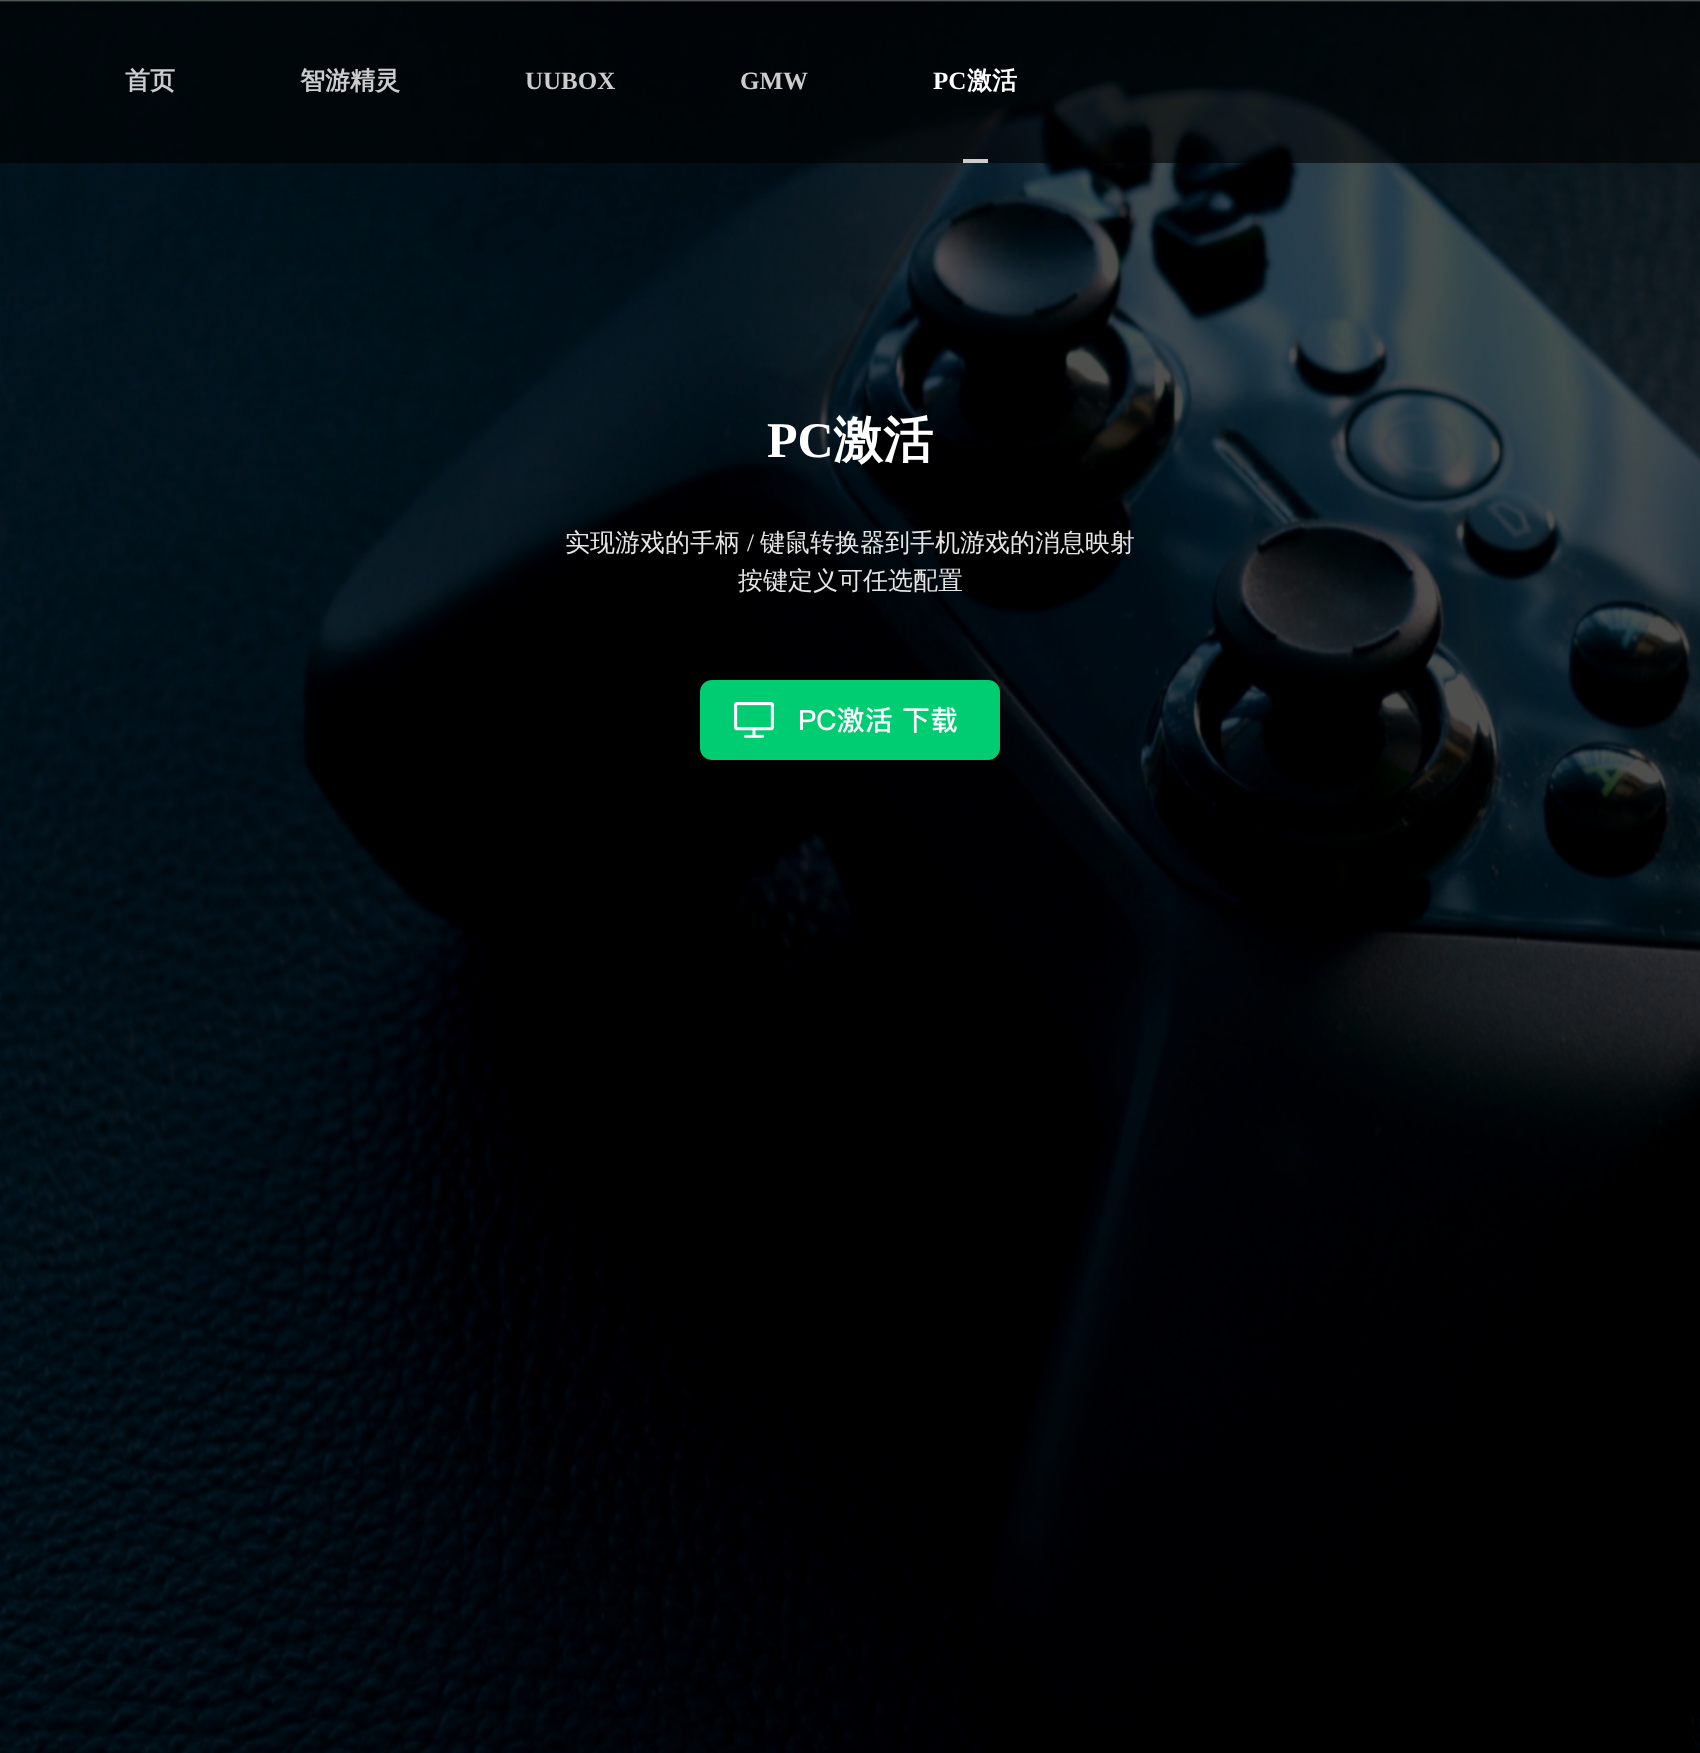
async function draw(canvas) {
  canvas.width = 1700
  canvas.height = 1753
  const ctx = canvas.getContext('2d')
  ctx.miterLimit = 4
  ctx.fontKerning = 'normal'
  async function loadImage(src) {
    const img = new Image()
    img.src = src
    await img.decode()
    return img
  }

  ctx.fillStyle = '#fff'
  ctx.fillRect(0, 0, 1700, 1753)
  ctx.drawImage(await loadImage('image0.png'), 0, 0, 1700, 1753)
  ctx.fillStyle = '#00000099'
  ctx.fillRect(0, 0, 1700, 163)
  ctx.font = 'bold 25px WenQuanYi Zen Hei'
  ctx.fillStyle = '#ccc'
  ctx.fillText('首页', 125, 89)
  ctx.fillText('智游精灵', 300, 89)
  ctx.font = 'bold 25px Liberation Serif'
  ctx.fillText('UUBOX', 525, 89)
  ctx.fillText('GMW', 740, 89)
  ctx.fillStyle = '#fff'
  ctx.fillText('PC', 933, 89)
  ctx.font = 'bold 25px WenQuanYi Zen Hei'
  ctx.fillText('激活', 967, 89)
  ctx.fillStyle = '#ccc'
  ctx.fillRect(963, 159, 25, 4)
  ctx.font = 'bold 50px Liberation Serif'
  ctx.fillStyle = '#fff'
  ctx.fillText('PC', 767, 457)
  ctx.font = 'bold 50px WenQuanYi Zen Hei'
  ctx.fillText('激活', 833, 457)
  ctx.font = '500 25px WenQuanYi Zen Hei'
  ctx.fillStyle = '#e5e5e5'
  ctx.fillText('实现游戏的手柄', 565, 551)
  ctx.font = '25px Liberation Serif'
  ctx.fillText('/', 747, 551)
  ctx.font = '500 25px WenQuanYi Zen Hei'
  ctx.fillText('键鼠转换器到手机游戏的消息映射', 760, 551)
  ctx.fillText('按键定义可任选配置', 738, 589)
  ctx.drawImage(await loadImage('image1.png'), 700, 680, 300, 80)
}

draw(document.querySelector('canvas'))
